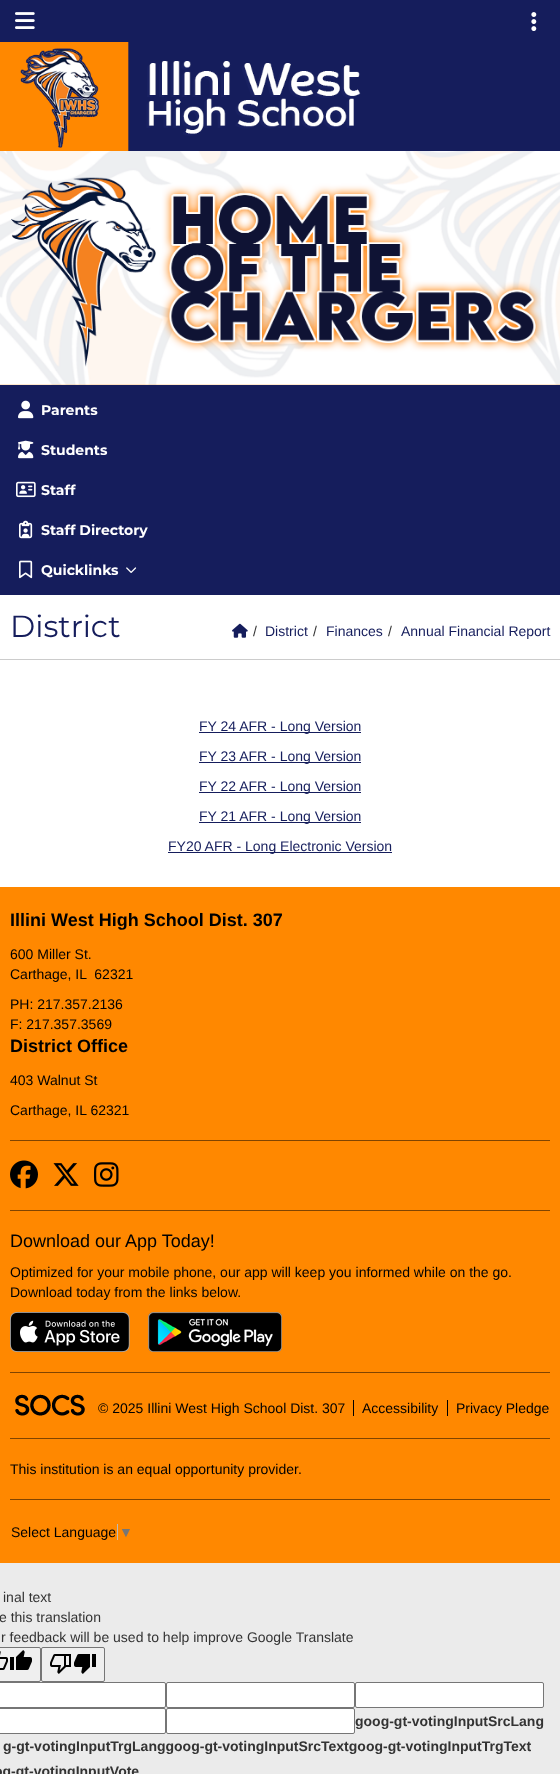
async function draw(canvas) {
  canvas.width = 560
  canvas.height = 1774
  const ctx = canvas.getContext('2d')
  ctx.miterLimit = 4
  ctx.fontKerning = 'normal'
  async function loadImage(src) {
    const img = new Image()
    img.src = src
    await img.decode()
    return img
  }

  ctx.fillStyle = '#ebebeb'
  ctx.fillRect(0, 0, 560, 1774)
  ctx.fillStyle = '#151d5c'
  ctx.fillRect(0, 0, 560, 42)
  ctx.drawImage(await loadImage('image0.png'), 15, 12, 20, 17)
  ctx.drawImage(await loadImage('image1.png'), 531, 12, 6, 19)
  ctx.fillStyle = '#f80'
  ctx.fillRect(0, 42, 560, 343)
  ctx.drawImage(await loadImage('image2.png'), 20, 42, 540, 109)
  ctx.drawImage(await loadImage('image3.png'), 0, 151, 560, 234)
  ctx.fillStyle = '#151d5c'
  ctx.fillRect(0, 385, 560, 210)
  ctx.drawImage(await loadImage('image4.png'), 18, 400, 16, 19)
  ctx.font = 'bold 14px Montserrat'
  ctx.fillStyle = '#fff'
  ctx.fillText('Parents', 41, 415)
  ctx.drawImage(await loadImage('image5.png'), 18, 440, 16, 19)
  ctx.fillText('Students', 41, 455)
  ctx.drawImage(await loadImage('image6.png'), 16, 481, 20, 17)
  ctx.fillText('Staff', 41, 495)
  ctx.drawImage(await loadImage('image7.png'), 19, 520, 14, 19)
  ctx.fillText('Staff Directory', 41, 535)
  ctx.drawImage(await loadImage('image8.png'), 19, 560, 14, 19)
  ctx.fillText('Quicklinks', 41, 575)
  ctx.drawImage(await loadImage('image9.png'), 126, 567, 11, 6)
  ctx.fillRect(0, 595, 560, 64)
  ctx.fillStyle = '#ccc'
  ctx.fillRect(0, 659, 560, 1)
  ctx.font = '30.5px Montserrat'
  ctx.fillStyle = '#151d5c'
  ctx.fillText('District', 10, 637)
  ctx.drawImage(await loadImage('image10.png'), 232, 623, 16, 15)
  ctx.font = '14px Liberation Sans'
  ctx.fillStyle = '#333'
  ctx.fillText('/', 253, 636)
  ctx.fillStyle = '#151d5c'
  ctx.fillText('District', 265, 636)
  ctx.fillStyle = '#333'
  ctx.fillText('/', 313, 636)
  ctx.fillStyle = '#151d5c'
  ctx.fillText('Finances', 326, 636)
  ctx.fillStyle = '#333'
  ctx.fillText('/', 388, 636)
  ctx.fillStyle = '#151d5c'
  ctx.fillText('Annual Financial Report', 401, 636)
  ctx.fillStyle = '#fff'
  ctx.fillRect(0, 660, 560, 227)
  ctx.fillStyle = '#151d5c'
  ctx.fillRect(199, 732, 162, 1)
  ctx.fillText('FY 24 AFR - Long Version', 199, 731)
  ctx.fillRect(199, 762, 162, 1)
  ctx.fillText('FY 23 AFR - Long Version', 199, 761)
  ctx.fillRect(199, 792, 162, 1)
  ctx.fillText('FY 22 AFR - Long Version', 199, 791)
  ctx.fillRect(199, 822, 162, 1)
  ctx.fillText('FY 21 AFR - Long Version', 199, 821)
  ctx.fillRect(168, 852, 224, 1)
  ctx.fillText('FY20 AFR - Long Electronic Version', 168, 851)
  ctx.fillStyle = '#f80'
  ctx.fillRect(0, 887, 560, 676)
  ctx.font = 'bold 18px Liberation Sans'
  ctx.fillStyle = '#000'
  ctx.fillText('Illini West High School Dist. 307', 10, 926)
  ctx.font = '14px Liberation Sans'
  ctx.fillText('600 Miller St.', 10, 959)
  ctx.fillText('Carthage, IL  62321', 10, 979)
  ctx.fillText('PH: 217.357.2136', 10, 1009)
  ctx.fillText('F: 217.357.3569', 10, 1029)
  ctx.font = 'bold 18px Liberation Sans'
  ctx.fillText('District Office', 10, 1052)
  ctx.font = '14px Liberation Sans'
  ctx.fillText('403 Walnut St', 10, 1085)
  ctx.fillText('Carthage, IL 62321', 10, 1115)
  ctx.fillStyle = '#804400'
  ctx.fillRect(10, 1140, 540, 1)
  ctx.drawImage(await loadImage('image11.png'), 10, 1160, 28, 29)
  ctx.drawImage(await loadImage('image12.png'), 53, 1163, 26, 23)
  ctx.drawImage(await loadImage('image13.png'), 94, 1162, 25, 25)
  ctx.fillRect(10, 1210, 540, 1)
  ctx.font = '18px Liberation Sans'
  ctx.fillStyle = '#000'
  ctx.fillText('Download our App Today!', 10, 1247)
  ctx.font = '14px Liberation Sans'
  ctx.fillText('Optimized for your mobile phone, our app will keep you informed while on the go.', 10, 1277)
  ctx.fillText('Download today from the links below.', 10, 1297)
  ctx.drawImage(await loadImage('image14.png'), 10, 1312, 120, 40)
  ctx.drawImage(await loadImage('image15.png'), 148, 1312, 134, 40)
  ctx.fillStyle = '#804400'
  ctx.fillRect(10, 1372, 540, 1)
  ctx.drawImage(await loadImage('image16.png'), 15, 1394, 70, 22)
  ctx.fillStyle = '#000'
  ctx.fillText('© 2025 Illini West High School Dist. 307', 98, 1413)
  ctx.fillText('Accessibility', 362, 1413)
  ctx.fillRect(353, 1400, 1, 16)
  ctx.fillText('Privacy Pledge', 456, 1413)
  ctx.fillRect(447, 1400, 1, 16)
  ctx.fillStyle = '#804400'
  ctx.fillRect(10, 1438, 540, 1)
  ctx.fillStyle = '#000'
  ctx.fillText('This institution is an equal opportunity provider.', 10, 1474)
  ctx.fillStyle = '#804400'
  ctx.fillRect(10, 1499, 540, 1)
  ctx.fillStyle = '#000'
  ctx.fillText('Select Language', 11, 1537)
  ctx.fillStyle = '#bbb'
  ctx.fillRect(117, 1524, 1, 16)
  ctx.fillStyle = '#767676'
  ctx.fillText('▼', 119, 1537)
  ctx.fillStyle = '#333'
  ctx.fillText('inal text', 3, 1602)
  ctx.fillText('e this translation', -1, 1622)
  ctx.fillText('r feedback will be used to help improve Google Translate', 1, 1642)
  ctx.fillStyle = '#efefef'
  ctx.beginPath()
  ctx.roundRect(-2.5, 1647.5, 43, 34, 1.5)
  ctx.fill()
  ctx.strokeStyle = '#767676'
  ctx.stroke()
  ctx.drawImage(await loadImage('image17.png'), 0, 1651, 8, 19)
  ctx.drawImage(await loadImage('image18.png'), 10, 1650, 22, 20)
  ctx.beginPath()
  ctx.roundRect(41.5, 1647.5, 63, 34, 1.5)
  ctx.fill()
  ctx.stroke()
  ctx.drawImage(await loadImage('image19.png'), 50, 1654, 21, 20)
  ctx.drawImage(await loadImage('image20.png'), 74, 1654, 22, 20)
  ctx.fillStyle = '#fff'
  ctx.beginPath()
  ctx.roundRect(-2.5, 1682.5, 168, 25, 1.5)
  ctx.fill()
  ctx.stroke()
  ctx.beginPath()
  ctx.roundRect(166.5, 1682.5, 188, 25, 1.5)
  ctx.fill()
  ctx.stroke()
  ctx.beginPath()
  ctx.roundRect(355.5, 1682.5, 188, 25, 1.5)
  ctx.fill()
  ctx.stroke()
  ctx.beginPath()
  ctx.roundRect(-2.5, 1708.5, 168, 25, 1.5)
  ctx.fill()
  ctx.stroke()
  ctx.beginPath()
  ctx.roundRect(166.5, 1708.5, 188, 25, 1.5)
  ctx.fill()
  ctx.stroke()
  ctx.font = 'bold 14px Liberation Sans'
  ctx.fillStyle = '#333'
  ctx.fillText('goog-gt-votingInputSrcLang', 355, 1726)
  ctx.fillText('g-gt-votingInputTrgLanggoog-gt-votingInputSrcTextgoog-gt-votingInputTrgText', 3, 1751)
  ctx.fillText('og-gt-votingInputVote', -6, 1776)
}

draw(document.querySelector('canvas'))
